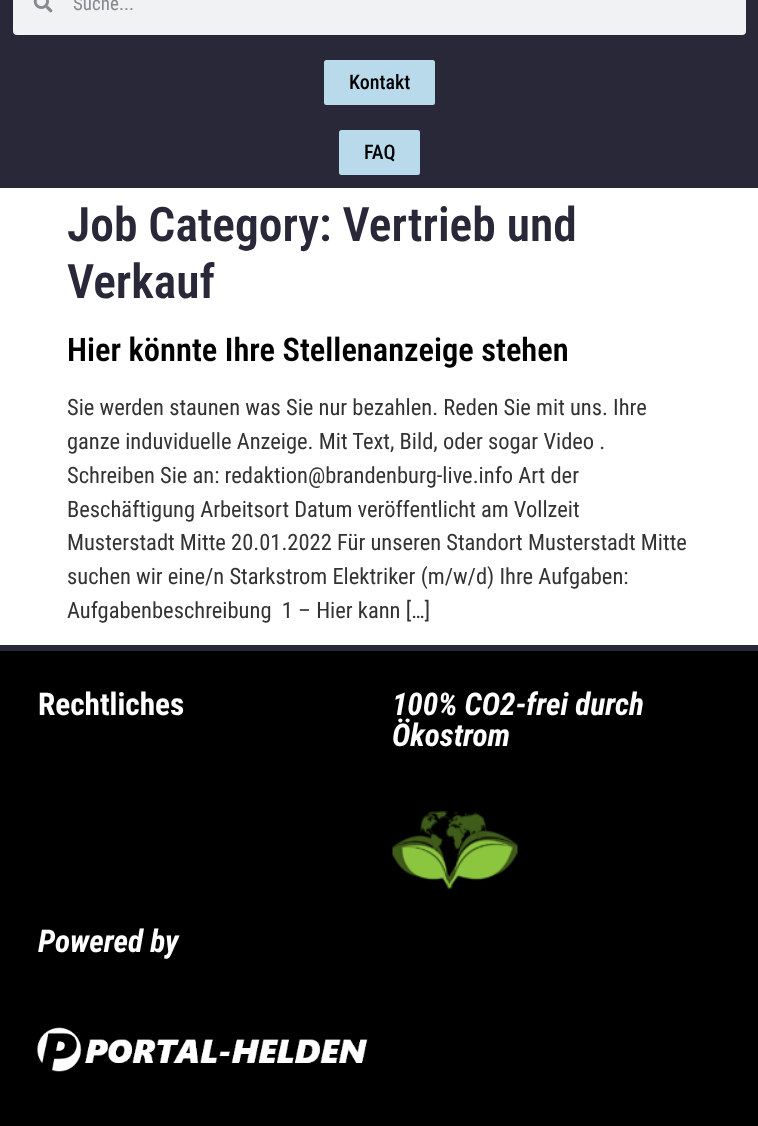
async function draw(canvas) {
  canvas.width = 758
  canvas.height = 1126
  const ctx = canvas.getContext('2d')
  ctx.miterLimit = 4
  ctx.fontKerning = 'normal'
  async function loadImage(src) {
    const img = new Image()
    img.src = src
    await img.decode()
    return img
  }

  ctx.fillStyle = '#fff'
  ctx.fillRect(0, 0, 758, 1126)
  ctx.fillStyle = '#292838'
  ctx.fillRect(0, 0, 758, 188)
  ctx.fillStyle = '#f1f2f3'
  ctx.beginPath()
  ctx.roundRect(13, -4, 733, 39, 4)
  ctx.fill()
  ctx.drawImage(await loadImage('image0.png'), 33, 0, 20, 13)
  ctx.font = '19px Roboto Condensed'
  ctx.fillStyle = '#868a8e'
  ctx.fillText('Suche...', 73, 10)
  ctx.fillStyle = '#b9daeb'
  ctx.beginPath()
  ctx.roundRect(324, 60, 111, 45, 2.5)
  ctx.fill()
  ctx.font = '500 20px Roboto Condensed'
  ctx.fillStyle = '#000'
  ctx.fillText('Kontakt', 349, 89)
  ctx.fillStyle = '#b9daeb'
  ctx.beginPath()
  ctx.roundRect(339, 130, 81, 45, 2.5)
  ctx.fill()
  ctx.fillStyle = '#000'
  ctx.fillText('FAQ', 364, 159)
  ctx.font = '600 47.5px Roboto Condensed'
  ctx.fillStyle = '#292838'
  ctx.fillText('Job Category: Vertrieb und', 67, 241)
  ctx.fillText('Verkauf', 67, 298)
  ctx.font = '600 32.5px Roboto Condensed'
  ctx.fillStyle = '#000'
  ctx.fillText('Hier könnte Ihre Stellenanzeige stehen', 67, 361)
  ctx.font = '22.5px Roboto Condensed'
  ctx.fillStyle = '#333'
  ctx.fillText('Sie werden staunen was Sie nur bezahlen. Reden Sie mit uns. Ihre', 67, 415)
  ctx.fillText('ganze induviduelle Anzeige. Mit Text, Bild, oder sogar Video .', 67, 449)
  ctx.fillText('Schreiben Sie an: redaktion@brandenburg-live.info Art der', 67, 483)
  ctx.fillText('Beschäftigung Arbeitsort Datum veröffentlicht am Vollzeit', 67, 517)
  ctx.fillText('Musterstadt Mitte 20.01.2022 Für unseren Standort Musterstadt Mitte', 67, 550)
  ctx.fillText('suchen wir eine/n Starkstrom Elektriker (m/w/d) Ihre Aufgaben:', 67, 584)
  ctx.fillText('Aufgabenbeschreibung  1 – Hier kann […]', 67, 618)
  ctx.fillStyle = '#000'
  ctx.fillRect(0, 651, 758, 475)
  ctx.fillStyle = '#292838'
  ctx.fillRect(0, 645, 758, 6)
  ctx.font = 'bold 31.25px Roboto Condensed'
  ctx.fillStyle = '#fff'
  ctx.fillText('Rechtliches', 38, 715)
  ctx.font = 'italic bold 31.25px Roboto Condensed'
  ctx.fillText('100% CO2-frei durch', 392, 715)
  ctx.fillText('Ökostrom', 392, 746)
  ctx.drawImage(await loadImage('image1.png'), 392, 811, 126, 78)
  ctx.fillText('Powered by', 38, 952)
  ctx.drawImage(await loadImage('image2.png'), 37, 1027, 331, 45)
}

draw(document.querySelector('canvas'))
